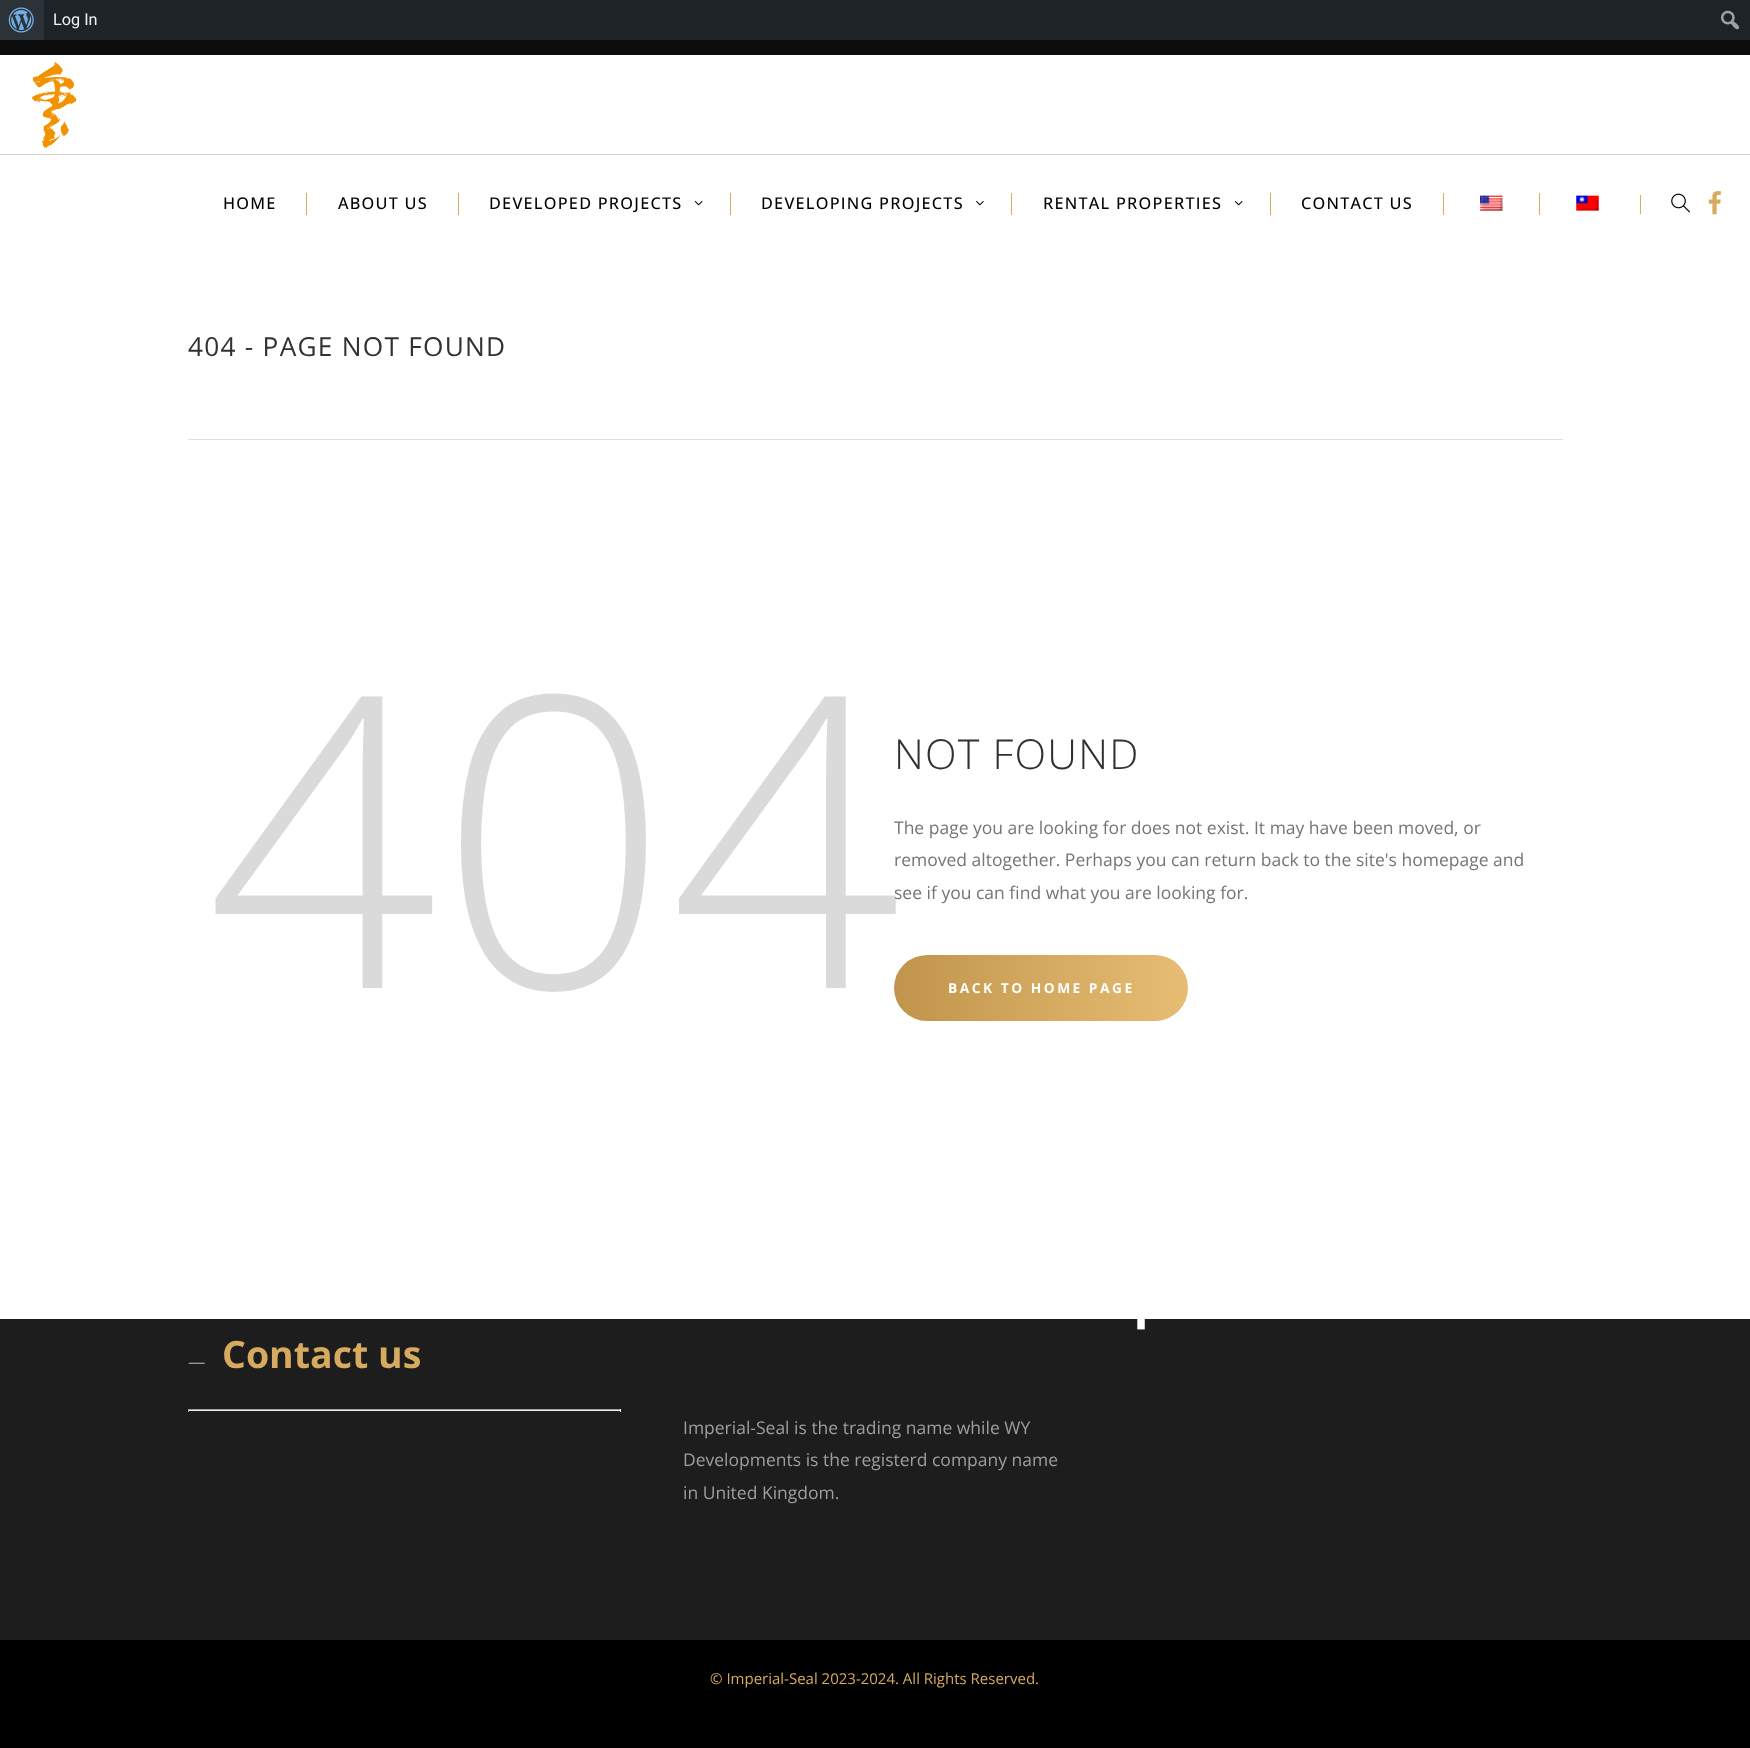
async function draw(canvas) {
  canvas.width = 1750
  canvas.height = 1748
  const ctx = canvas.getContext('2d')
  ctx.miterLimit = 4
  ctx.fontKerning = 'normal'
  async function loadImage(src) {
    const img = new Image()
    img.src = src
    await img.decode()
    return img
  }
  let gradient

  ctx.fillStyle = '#fff'
  ctx.fillRect(0, 0, 1750, 1748)
  ctx.fillStyle = '#1d2327'
  ctx.fillRect(44, 0, 1706, 40)
  ctx.fillStyle = '#2c3338'
  ctx.fillRect(0, 0, 44, 40)
  ctx.drawImage(await loadImage('image0.png'), 8, 7, 26, 26)
  ctx.font = '16.25px Roboto'
  ctx.fillStyle = '#f0f0f1'
  ctx.fillText('Log In', 53, 25)
  ctx.drawImage(await loadImage('image1.png'), 1721, 10, 18, 20)
  ctx.fillStyle = '#0c0c0c'
  ctx.fillRect(0, 40, 1750, 15)
  ctx.fillStyle = '#d5d5d5'
  ctx.fillRect(0, 154, 1750, 1)
  ctx.drawImage(await loadImage('image2.png'), 32, 61, 45, 87)
  ctx.letterSpacing = '1.25px'
  ctx.font = '500 16.25px Open Sans'
  ctx.fillStyle = '#000'
  ctx.fillText('HOME', 223, 209)
  ctx.fillStyle = '#d6ab60'
  ctx.fillRect(306, 193, 1, 22)
  ctx.fillStyle = '#000'
  ctx.fillText('ABOUT US', 338, 209)
  ctx.fillStyle = '#d6ab60'
  ctx.fillRect(458, 193, 1, 22)
  ctx.fillStyle = '#000'
  ctx.fillText('DEVELOPED PROJECTS', 489, 209)
  ctx.drawImage(await loadImage('image3.png'), 694, 201, 9, 5)
  ctx.fillStyle = '#d6ab60'
  ctx.fillRect(730, 193, 1, 22)
  ctx.fillStyle = '#000'
  ctx.fillText('DEVELOPING PROJECTS', 761, 209)
  ctx.drawImage(await loadImage('image4.png'), 976, 201, 8, 5)
  ctx.fillStyle = '#d6ab60'
  ctx.fillRect(1011, 193, 1, 22)
  ctx.fillStyle = '#000'
  ctx.fillText('RENTAL PROPERTIES', 1043, 209)
  ctx.drawImage(await loadImage('image3.png'), 1234, 201, 9, 5)
  ctx.fillStyle = '#d6ab60'
  ctx.fillRect(1270, 193, 1, 22)
  ctx.fillStyle = '#000'
  ctx.fillText('CONTACT US', 1301, 209)
  ctx.fillStyle = '#d6ab60'
  ctx.fillRect(1443, 193, 1, 22)
  ctx.drawImage(await loadImage('image5.png'), 1480, 195, 23, 16)
  ctx.fillRect(1539, 193, 1, 22)
  ctx.drawImage(await loadImage('image6.png'), 1576, 195, 23, 16)
  ctx.fillRect(1640, 195, 1, 19)
  ctx.drawImage(await loadImage('image7.png'), 1671, 193, 19, 20)
  ctx.drawImage(await loadImage('image8.png'), 1708, 191, 13, 24)
  ctx.fillStyle = '#e0e0e0'
  ctx.fillRect(188, 439, 1375, 1)
  ctx.font = '26.25px Open Sans'
  ctx.fillStyle = '#313131'
  ctx.fillText('404 - PAGE NOT FOUND', 188, 356)
  ctx.letterSpacing = '0px'
  ctx.font = '300 406px Open Sans'
  ctx.fillStyle = '#dadada'
  ctx.fillText('404', 206, 988)
  ctx.letterSpacing = '1.25px'
  ctx.font = '300 41.25px Open Sans'
  ctx.fillStyle = '#313131'
  ctx.fillText('NOT FOUND', 894, 769)
  ctx.letterSpacing = '0px'
  ctx.font = '17.5px Open Sans'
  ctx.fillStyle = '#757575'
  ctx.fillText('The page you are looking for does not exist. It may have been moved, or', 894, 834)
  ctx.fillText('removed altogether. Perhaps you can return back to the site\'s homepage and', 894, 866)
  ctx.fillText('see if you can find what you are looking for.', 894, 899)
  gradient = ctx.createLinearGradient(894, 988, 1188, 988)
  gradient.addColorStop(0, '#c0954b')
  gradient.addColorStop(1, '#e7bd74')
  ctx.fillStyle = gradient
  ctx.beginPath()
  ctx.roundRect(894, 955, 294, 66, 33)
  ctx.fill()
  ctx.letterSpacing = '2.5px'
  ctx.font = 'bold 13.75px Open Sans'
  ctx.fillStyle = '#fff'
  ctx.fillText('BACK TO HOME PAGE', 948, 993)
  ctx.fillStyle = '#1d1d1d'
  ctx.fillRect(0, 1319, 1750, 321)
  ctx.drawImage(await loadImage('image9.png'), 1137, 1319, 8, 11)
  ctx.letterSpacing = '0px'
  ctx.font = '17.5px Open Sans'
  ctx.fillStyle = '#9e9e9e'
  ctx.fillText('—', 188, 1368)
  ctx.font = 'bold 37.5px Open Sans'
  ctx.fillStyle = '#d6ab60'
  ctx.fillText('Contact us', 222, 1368)
  ctx.fillStyle = '#9f9f9f'
  ctx.fillRect(188, 1409, 433, 1)
  ctx.fillStyle = '#eee'
  ctx.fillRect(620, 1409, 1, 3)
  ctx.fillRect(188, 1410, 433, 1)
  ctx.fillStyle = '#9f9f9f'
  ctx.fillRect(188, 1409, 1, 3)
  ctx.font = '17.5px Open Sans'
  ctx.fillStyle = '#9e9e9e'
  ctx.fillText('Imperial-Seal is the trading name while WY', 683, 1434)
  ctx.fillText('Developments is the registerd company name', 683, 1466)
  ctx.fillText('in United Kingdom.', 683, 1499)
  ctx.fillStyle = '#000'
  ctx.fillRect(0, 1640, 1750, 108)
  ctx.font = '15px Open Sans'
  ctx.fillStyle = '#d6ab60'
  ctx.fillText('© Imperial-Seal 2023-2024. All Rights Reserved.', 710, 1684)
}

draw(document.querySelector('canvas'))
